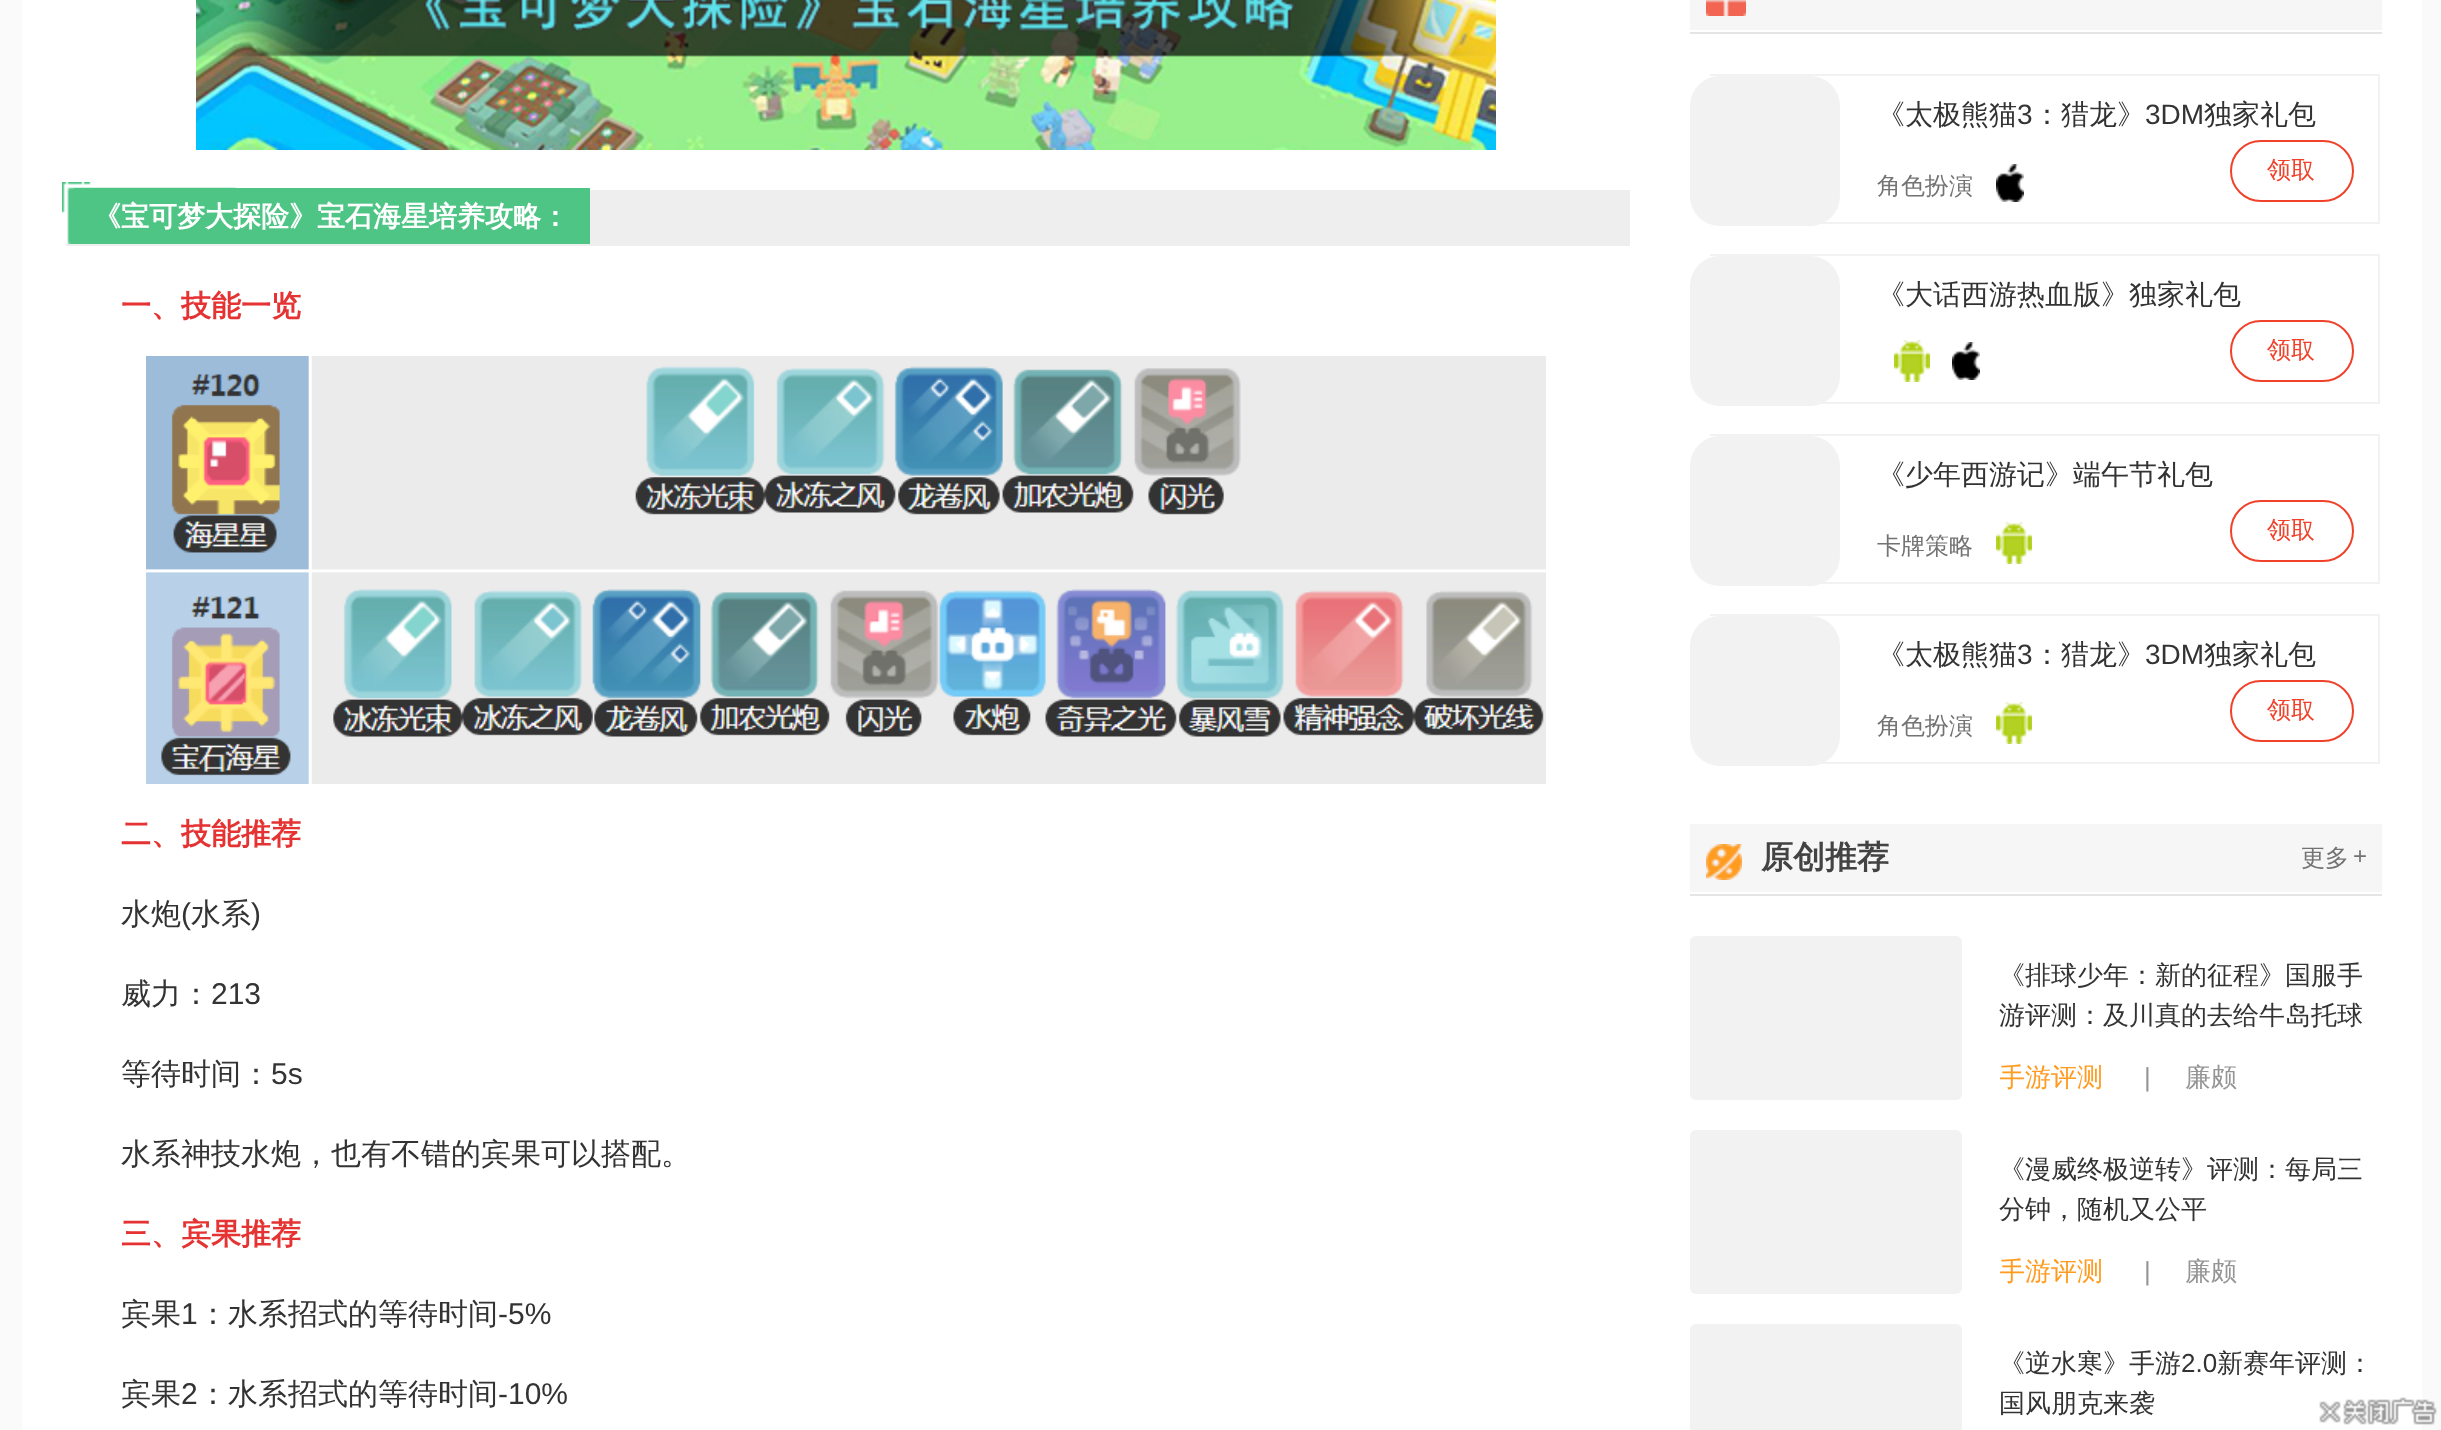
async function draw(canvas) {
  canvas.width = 2441
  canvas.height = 1430
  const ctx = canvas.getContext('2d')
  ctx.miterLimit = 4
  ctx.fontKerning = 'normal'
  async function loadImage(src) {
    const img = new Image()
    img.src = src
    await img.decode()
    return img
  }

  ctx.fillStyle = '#fafafa'
  ctx.fillRect(0, 0, 2441, 1430)
  ctx.fillStyle = '#fff'
  ctx.fillRect(22, 0, 2400, 1430)
  ctx.drawImage(await loadImage('image0.png'), 196, 0, 1300, 150)
  ctx.fillStyle = '#eee'
  ctx.fillRect(66, 190, 1564, 56)
  ctx.fillStyle = '#fff'
  ctx.fillRect(66, 190, 170, 54)
  ctx.drawImage(await loadImage('image1.png'), 62, 182, 174, 62)
  ctx.fillStyle = '#4ec585'
  ctx.fillRect(74, 188, 516, 56)
  ctx.font = 'bold 28px WenQuanYi Zen Hei'
  ctx.fillStyle = '#fff'
  ctx.fillText('《宝可梦大探险》宝石海星培养攻略：', 93, 226)
  ctx.font = 'bold 30px WenQuanYi Zen Hei'
  ctx.fillStyle = '#e53333'
  ctx.fillText('一、技能一览', 121, 316)
  ctx.drawImage(await loadImage('image2.png'), 146, 356, 1400, 428)
  ctx.fillText('二、技能推荐', 121, 844)
  ctx.font = '500 30px WenQuanYi Zen Hei'
  ctx.fillStyle = '#333'
  ctx.fillText('水炮', 121, 924)
  ctx.font = '30px Liberation Sans'
  ctx.fillText('(', 181, 924)
  ctx.font = '500 30px WenQuanYi Zen Hei'
  ctx.fillText('水系', 191, 924)
  ctx.font = '30px Liberation Sans'
  ctx.fillText(')', 251, 924)
  ctx.font = '500 30px WenQuanYi Zen Hei'
  ctx.fillText('威力：', 121, 1004)
  ctx.font = '30px Liberation Sans'
  ctx.fillText('213', 211, 1004)
  ctx.font = '500 30px WenQuanYi Zen Hei'
  ctx.fillText('等待时间：', 121, 1084)
  ctx.font = '30px Liberation Sans'
  ctx.fillText('5s', 271, 1084)
  ctx.font = '500 30px WenQuanYi Zen Hei'
  ctx.fillText('水系神技水炮，也有不错的宾果可以搭配。', 121, 1164)
  ctx.font = 'bold 30px WenQuanYi Zen Hei'
  ctx.fillStyle = '#e53333'
  ctx.fillText('三、宾果推荐', 121, 1244)
  ctx.font = '500 30px WenQuanYi Zen Hei'
  ctx.fillStyle = '#333'
  ctx.fillText('宾果', 121, 1324)
  ctx.font = '30px Liberation Sans'
  ctx.fillText('1', 181, 1324)
  ctx.font = '500 30px WenQuanYi Zen Hei'
  ctx.fillText('：水系招式的等待时间', 198, 1324)
  ctx.font = '30px Liberation Sans'
  ctx.fillText('-5%', 498, 1324)
  ctx.font = '500 30px WenQuanYi Zen Hei'
  ctx.fillText('宾果', 121, 1404)
  ctx.font = '30px Liberation Sans'
  ctx.fillText('2', 181, 1404)
  ctx.font = '500 30px WenQuanYi Zen Hei'
  ctx.fillText('：水系招式的等待时间', 198, 1404)
  ctx.font = '30px Liberation Sans'
  ctx.fillText('-10%', 498, 1404)
  ctx.fillStyle = '#f6f6f6'
  ctx.fillRect(1690, 0, 692, 30)
  ctx.drawImage(await loadImage('image3.png'), 1706, 0, 40, 16)
  ctx.fillStyle = '#e5e5e5'
  ctx.fillRect(1690, 32, 692, 2)
  ctx.fillStyle = '#f2f2f2'
  ctx.fillRect(1710, 74, 670, 2)
  ctx.fillRect(2378, 74, 2, 150)
  ctx.fillRect(1820, 222, 560, 2)
  ctx.beginPath()
  ctx.roundRect(1690, 76, 150, 150, 30)
  ctx.fill()
  ctx.font = '500 28px WenQuanYi Zen Hei'
  ctx.fillStyle = '#333'
  ctx.fillText('《太极熊猫', 1877, 124)
  ctx.font = '28px Liberation Sans'
  ctx.fillText('3', 2017, 124)
  ctx.font = '500 28px WenQuanYi Zen Hei'
  ctx.fillText('：猎龙》', 2033, 124)
  ctx.font = '28px Liberation Sans'
  ctx.fillText('3DM', 2145, 124)
  ctx.font = '500 28px WenQuanYi Zen Hei'
  ctx.fillText('独家礼包', 2204, 124)
  ctx.beginPath()
  ctx.roundRect(2231, 141, 122, 60, 30)
  ctx.strokeStyle = '#f0412a'
  ctx.lineWidth = 2
  ctx.stroke()
  ctx.font = '500 24px WenQuanYi Zen Hei'
  ctx.fillStyle = '#f0412a'
  ctx.fillText('领取', 2267, 178)
  ctx.fillStyle = '#737373'
  ctx.fillText('角色扮演', 1877, 194)
  ctx.drawImage(await loadImage('image4.png'), 1996, 164, 28, 38)
  ctx.fillStyle = '#f2f2f2'
  ctx.fillRect(1710, 254, 670, 2)
  ctx.fillRect(2378, 254, 2, 150)
  ctx.fillRect(1820, 402, 560, 2)
  ctx.beginPath()
  ctx.roundRect(1690, 256, 150, 150, 30)
  ctx.fill()
  ctx.font = '500 28px WenQuanYi Zen Hei'
  ctx.fillStyle = '#333'
  ctx.fillText('《大话西游热血版》独家礼包', 1877, 304)
  ctx.drawImage(await loadImage('image5.png'), 1894, 340, 36, 42)
  ctx.drawImage(await loadImage('image4.png'), 1952, 342, 28, 38)
  ctx.beginPath()
  ctx.roundRect(2231, 321, 122, 60, 30)
  ctx.stroke()
  ctx.font = '500 24px WenQuanYi Zen Hei'
  ctx.fillStyle = '#f0412a'
  ctx.fillText('领取', 2267, 358)
  ctx.fillStyle = '#f2f2f2'
  ctx.fillRect(1710, 434, 670, 2)
  ctx.fillRect(2378, 434, 2, 150)
  ctx.fillRect(1820, 582, 560, 2)
  ctx.beginPath()
  ctx.roundRect(1690, 436, 150, 150, 30)
  ctx.fill()
  ctx.font = '500 28px WenQuanYi Zen Hei'
  ctx.fillStyle = '#333'
  ctx.fillText('《少年西游记》端午节礼包', 1877, 484)
  ctx.beginPath()
  ctx.roundRect(2231, 501, 122, 60, 30)
  ctx.stroke()
  ctx.font = '500 24px WenQuanYi Zen Hei'
  ctx.fillStyle = '#f0412a'
  ctx.fillText('领取', 2267, 538)
  ctx.fillStyle = '#737373'
  ctx.fillText('卡牌策略', 1877, 554)
  ctx.drawImage(await loadImage('image5.png'), 1996, 522, 36, 42)
  ctx.fillStyle = '#f2f2f2'
  ctx.fillRect(1710, 614, 670, 2)
  ctx.fillRect(2378, 614, 2, 150)
  ctx.fillRect(1820, 762, 560, 2)
  ctx.beginPath()
  ctx.roundRect(1690, 616, 150, 150, 30)
  ctx.fill()
  ctx.font = '500 28px WenQuanYi Zen Hei'
  ctx.fillStyle = '#333'
  ctx.fillText('《太极熊猫', 1877, 664)
  ctx.font = '28px Liberation Sans'
  ctx.fillText('3', 2017, 664)
  ctx.font = '500 28px WenQuanYi Zen Hei'
  ctx.fillText('：猎龙》', 2033, 664)
  ctx.font = '28px Liberation Sans'
  ctx.fillText('3DM', 2145, 664)
  ctx.font = '500 28px WenQuanYi Zen Hei'
  ctx.fillText('独家礼包', 2204, 664)
  ctx.beginPath()
  ctx.roundRect(2231, 681, 122, 60, 30)
  ctx.stroke()
  ctx.font = '500 24px WenQuanYi Zen Hei'
  ctx.fillStyle = '#f0412a'
  ctx.fillText('领取', 2267, 718)
  ctx.fillStyle = '#737373'
  ctx.fillText('角色扮演', 1877, 734)
  ctx.drawImage(await loadImage('image5.png'), 1996, 702, 36, 42)
  ctx.fillStyle = '#f6f6f6'
  ctx.fillRect(1690, 824, 692, 68)
  ctx.drawImage(await loadImage('image6.png'), 1706, 844, 36, 36)
  ctx.font = 'bold 32px WenQuanYi Zen Hei'
  ctx.fillStyle = '#434343'
  ctx.fillText('原创推荐', 1761, 868)
  ctx.font = '500 24px WenQuanYi Zen Hei'
  ctx.fillStyle = '#737373'
  ctx.fillText('更多', 2301, 866)
  ctx.font = '24px Liberation Sans'
  ctx.fillText('+', 2353, 864)
  ctx.fillStyle = '#e5e5e5'
  ctx.fillRect(1690, 894, 692, 2)
  ctx.fillStyle = '#f2f2f2'
  ctx.beginPath()
  ctx.roundRect(1690, 936, 272, 164, 6)
  ctx.fill()
  ctx.font = '500 26px WenQuanYi Zen Hei'
  ctx.fillStyle = '#333'
  ctx.fillText('《排球少年：新的征程》国服手', 1999, 984)
  ctx.fillText('游评测：及川真的去给牛岛托球', 1999, 1024)
  ctx.save()
  ctx.beginPath()
  ctx.rect(2000, 1036, 380, 56)
  ctx.clip()
  ctx.fillStyle = '#ff9b1f'
  ctx.fillText('手游评测', 1999, 1086)
  ctx.restore()
  ctx.font = '26px Liberation Sans'
  ctx.fillStyle = '#959595'
  ctx.fillText('|', 2144, 1086)
  ctx.font = '500 26px WenQuanYi Zen Hei'
  ctx.fillText('廉颇', 2185, 1086)
  ctx.fillStyle = '#f2f2f2'
  ctx.beginPath()
  ctx.roundRect(1690, 1130, 272, 164, 6)
  ctx.fill()
  ctx.fillStyle = '#333'
  ctx.fillText('《漫威终极逆转》评测：每局三', 1999, 1178)
  ctx.fillText('分钟，随机又公平', 1999, 1218)
  ctx.save()
  ctx.beginPath()
  ctx.rect(2000, 1230, 380, 56)
  ctx.clip()
  ctx.fillStyle = '#ff9b1f'
  ctx.fillText('手游评测', 1999, 1280)
  ctx.restore()
  ctx.font = '26px Liberation Sans'
  ctx.fillStyle = '#959595'
  ctx.fillText('|', 2144, 1280)
  ctx.font = '500 26px WenQuanYi Zen Hei'
  ctx.fillText('廉颇', 2185, 1280)
  ctx.fillStyle = '#f2f2f2'
  ctx.beginPath()
  ctx.roundRect(1690, 1324, 272, 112, 6)
  ctx.fill()
  ctx.fillStyle = '#333'
  ctx.fillText('《逆水寒》手游', 1999, 1372)
  ctx.font = '26px Liberation Sans'
  ctx.fillText('2.0', 2181, 1372)
  ctx.font = '500 26px WenQuanYi Zen Hei'
  ctx.fillText('新赛年评测：', 2217, 1372)
  ctx.fillText('国风朋克来袭', 1999, 1412)
  ctx.drawImage(await loadImage('image7.png'), 2319, 1397, 118, 28)
}

draw(document.querySelector('canvas'))
